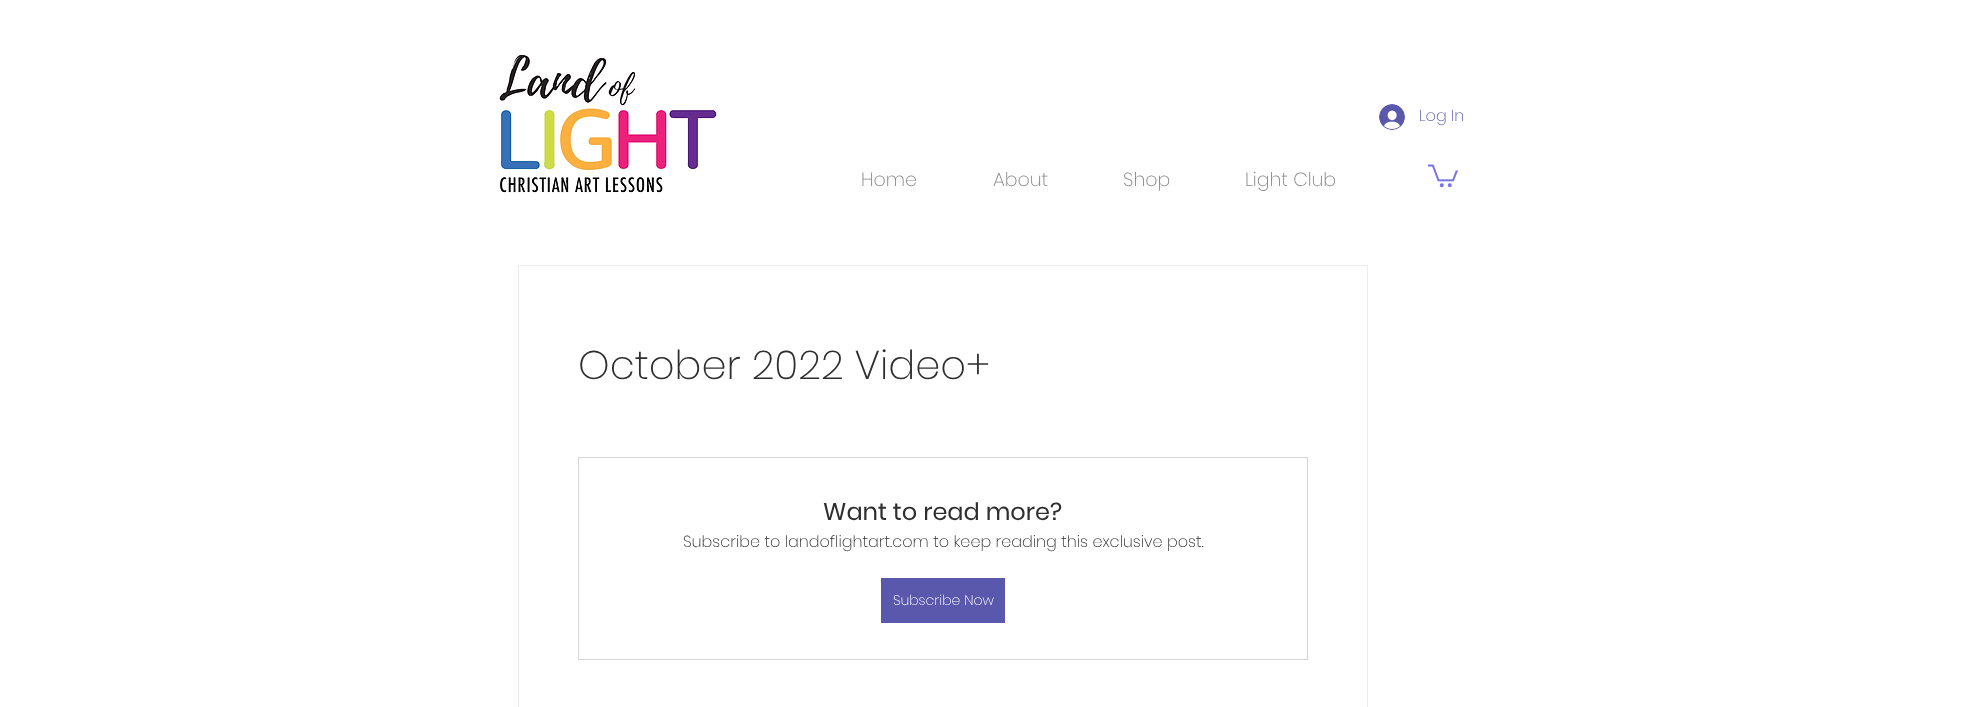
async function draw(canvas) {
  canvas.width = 1976
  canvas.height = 707
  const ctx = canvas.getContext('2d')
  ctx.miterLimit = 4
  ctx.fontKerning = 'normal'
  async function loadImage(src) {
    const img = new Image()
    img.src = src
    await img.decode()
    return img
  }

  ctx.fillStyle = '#fff'
  ctx.fillRect(0, 0, 1976, 707)
  ctx.drawImage(await loadImage('image0.png'), 498, 55, 220, 138)
  ctx.drawImage(await loadImage('image1.png'), 1379, 104, 26, 26)
  ctx.font = '200 16px Poppins'
  ctx.fillStyle = '#5958ad'
  ctx.fillText('Log In', 1419, 121)
  ctx.font = '200 19px Poppins'
  ctx.fillStyle = '#858585'
  ctx.fillText('Home', 861, 186)
  ctx.fillText('About', 993, 186)
  ctx.fillText('Shop', 1123, 186)
  ctx.fillText('Light Club', 1245, 186)
  ctx.drawImage(await loadImage('image2.png'), 1428, 164, 30, 24)
  ctx.strokeStyle = '#ececec'
  ctx.strokeRect(518.5, 265.5, 849, 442)
  ctx.font = '200 40px Poppins'
  ctx.fillStyle = '#2f2e2e'
  ctx.fillText('October 2022 Video+', 578, 379)
  ctx.strokeStyle = '#d5d5d5'
  ctx.strokeRect(578.5, 457.5, 729, 202)
  ctx.font = '24px Poppins'
  ctx.fillText('Want to read more?', 823, 520)
  ctx.font = '200 16px Poppins'
  ctx.fillText('Subscribe to landoflightart.com to keep reading this exclusive post.', 683, 547)
  ctx.fillStyle = '#5958ad'
  ctx.fillRect(881, 578, 124, 45)
  ctx.font = '200 14px Poppins'
  ctx.fillStyle = '#fff'
  ctx.fillText('Subscribe Now', 893, 605)
}

draw(document.querySelector('canvas'))
